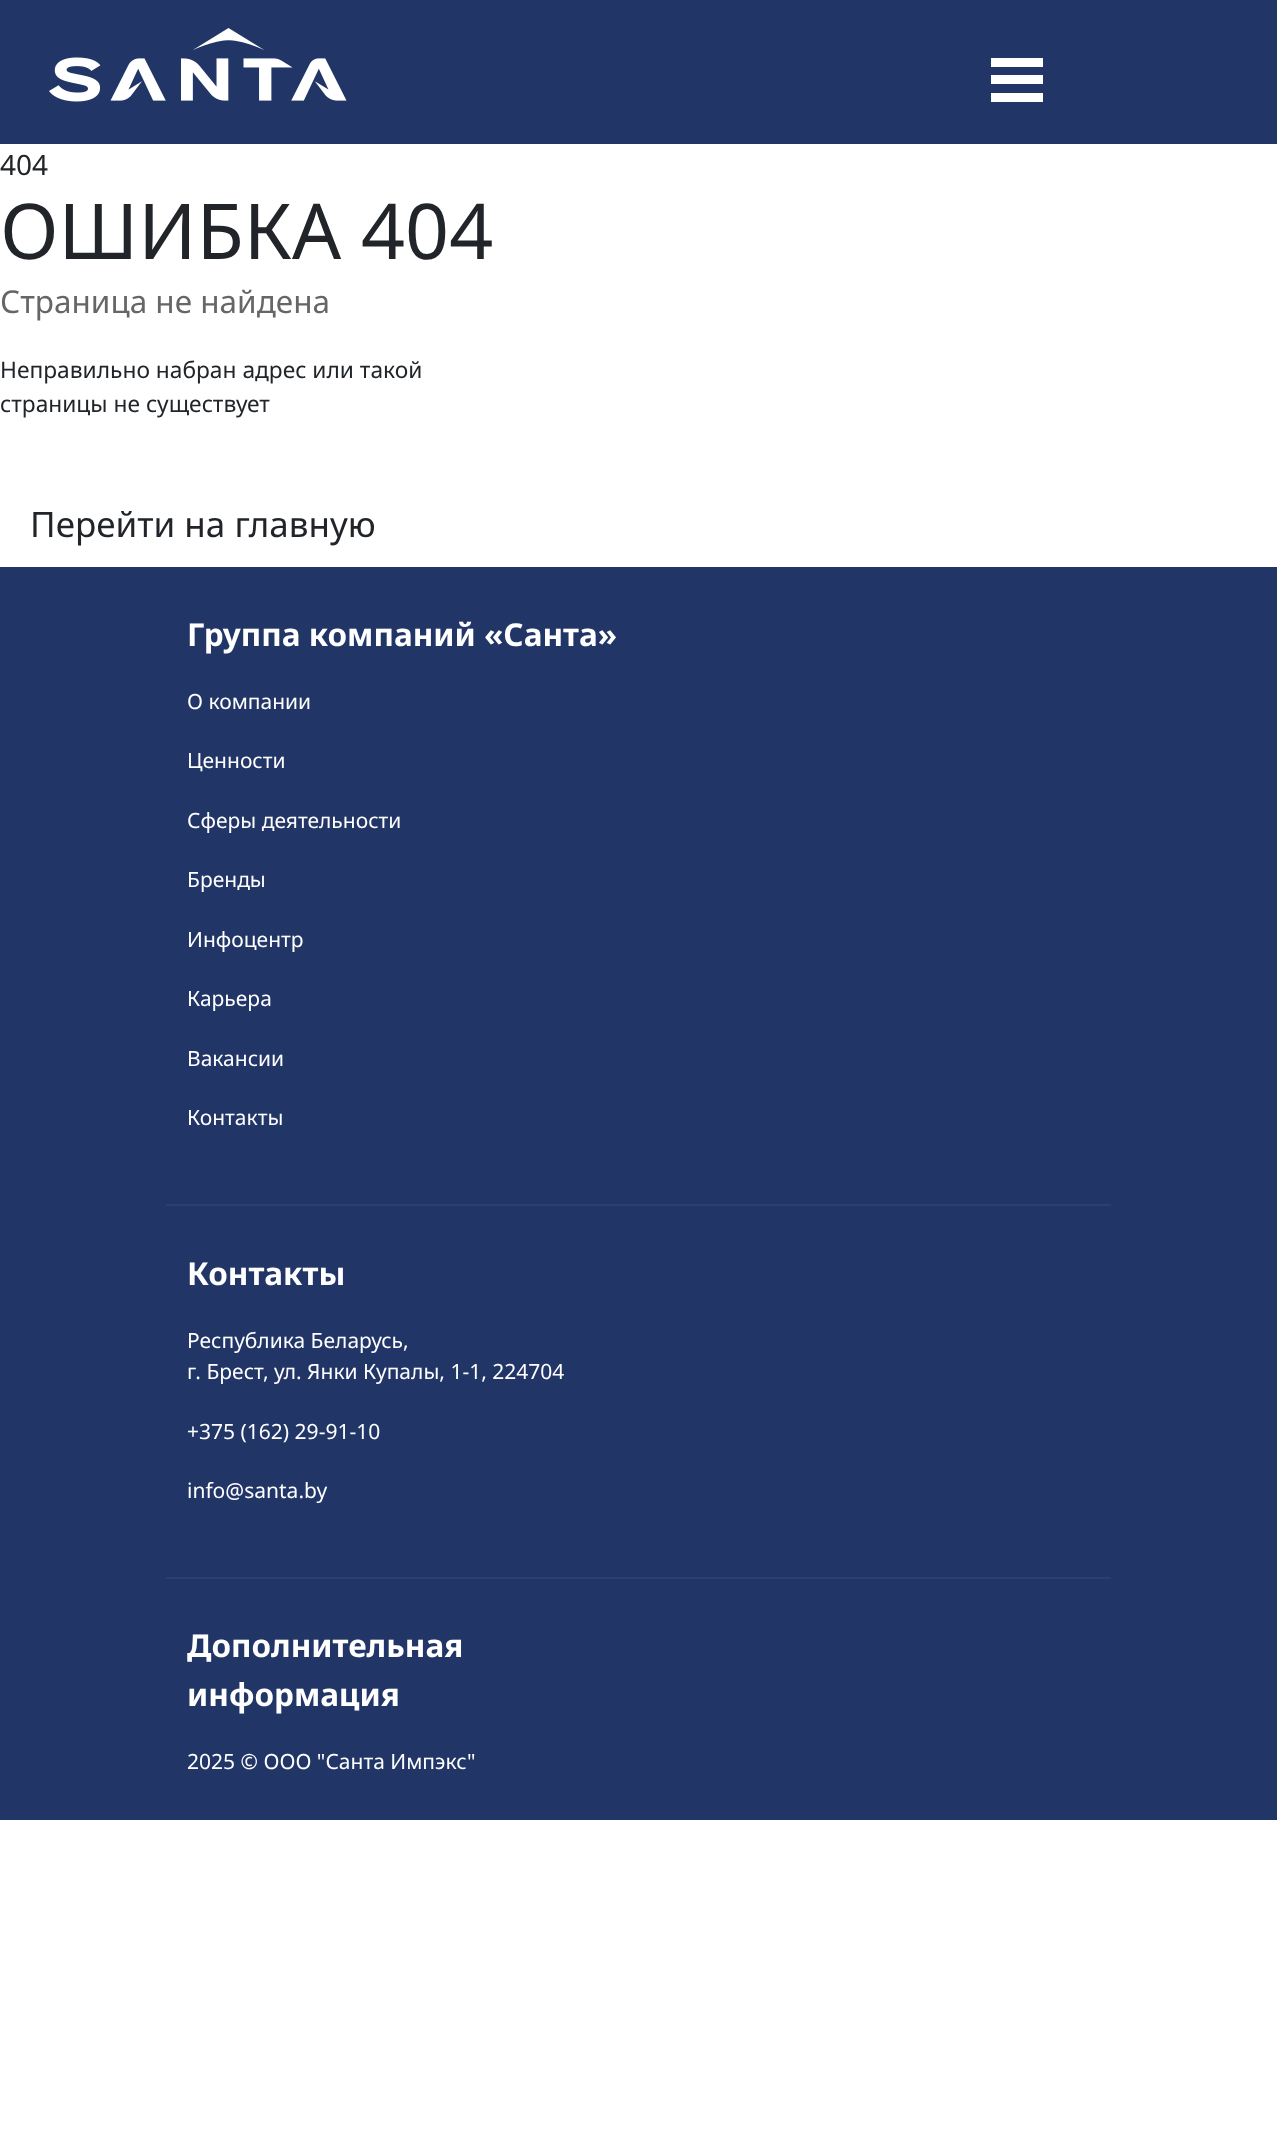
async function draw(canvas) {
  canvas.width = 1277
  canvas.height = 2154
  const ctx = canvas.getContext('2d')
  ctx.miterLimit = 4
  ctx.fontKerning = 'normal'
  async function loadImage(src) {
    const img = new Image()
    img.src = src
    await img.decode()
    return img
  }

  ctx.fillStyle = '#fff'
  ctx.fillRect(0, 0, 1277, 2154)
  ctx.fillStyle = '#213567'
  ctx.fillRect(0, 0, 1277, 144)
  ctx.drawImage(await loadImage('image0.png'), 49, 28, 298, 74)
  ctx.fillStyle = '#fff'
  ctx.fillRect(991, 58, 52, 9)
  ctx.fillRect(991, 93, 52, 9)
  ctx.fillRect(991, 75, 52, 9)
  ctx.font = '28px Noto Sans'
  ctx.fillStyle = '#212529'
  ctx.fillText('404', 0, 175)
  ctx.font = '77px Noto Sans'
  ctx.fillText('ОШИБКА 404', 0, 259)
  ctx.font = '31.5px Noto Sans'
  ctx.fillStyle = '#666'
  ctx.fillText('Страница не найдена', 0, 313)
  ctx.font = '22.75px Noto Sans'
  ctx.fillStyle = '#212529'
  ctx.fillText('Неправильно набран адрес или такой', 0, 378)
  ctx.fillText('страницы не существует', 0, 412)
  ctx.font = '35px Noto Sans'
  ctx.fillText('Перейти на главную', 30, 537)
  ctx.fillStyle = '#213567'
  ctx.fillRect(0, 567, 1277, 1253)
  ctx.font = 'bold 31.5px Noto Sans'
  ctx.fillStyle = '#fff'
  ctx.fillText('Группа компаний «Санта»', 187, 646)
  ctx.font = '21px Noto Sans'
  ctx.fillText('О компании', 187, 709)
  ctx.fillText('Ценности', 187, 768)
  ctx.fillText('Сферы деятельности', 187, 828)
  ctx.fillText('Бренды', 187, 887)
  ctx.fillText('Инфоцентр', 187, 947)
  ctx.fillText('Карьера', 187, 1006)
  ctx.fillText('Вакансии', 187, 1066)
  ctx.fillText('Контакты', 187, 1125)
  ctx.fillStyle = '#2c3f6f'
  ctx.fillRect(166, 1204, 945, 2)
  ctx.font = 'bold 31.5px Noto Sans'
  ctx.fillStyle = '#fff'
  ctx.fillText('Контакты', 187, 1285)
  ctx.font = '21px Noto Sans'
  ctx.fillText('Республика Беларусь,', 187, 1348)
  ctx.fillText('г. Брест, ул. Янки Купалы, 1-1, 224704', 187, 1379)
  ctx.fillText('+375 (162) 29-91-10', 187, 1439)
  ctx.fillText('info@santa.by', 187, 1498)
  ctx.fillStyle = '#2c3f6f'
  ctx.fillRect(166, 1577, 945, 2)
  ctx.font = 'bold 31.5px Noto Sans'
  ctx.fillStyle = '#fff'
  ctx.fillText('Дополнительная', 187, 1657)
  ctx.fillText('информация', 187, 1706)
  ctx.font = '21px Noto Sans'
  ctx.fillText('2025 © ООО "Санта Импэкс"', 187, 1769)
}

draw(document.querySelector('canvas'))
